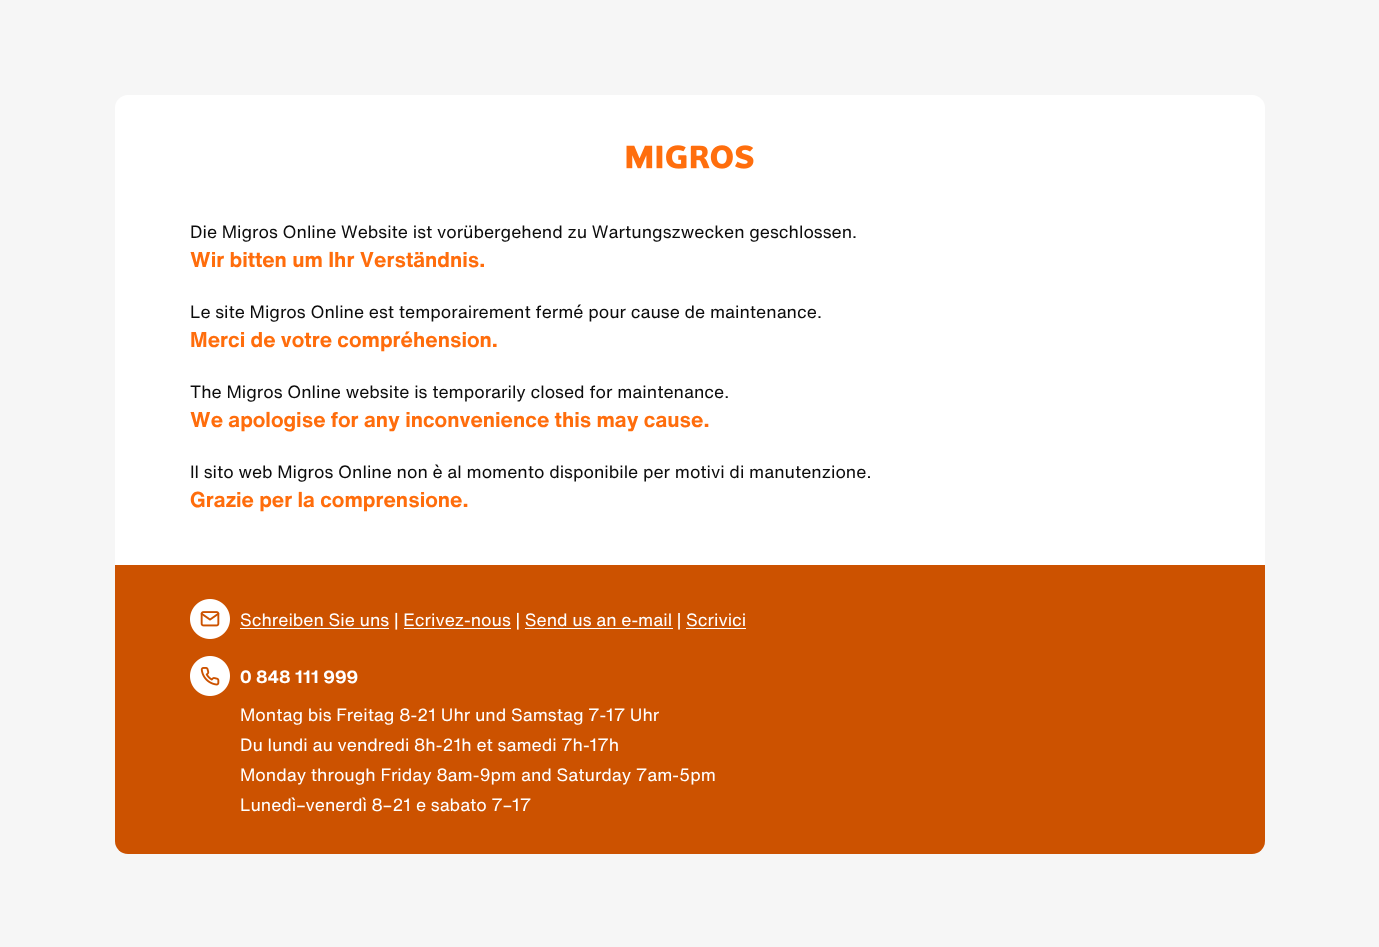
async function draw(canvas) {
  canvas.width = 1379
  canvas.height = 947
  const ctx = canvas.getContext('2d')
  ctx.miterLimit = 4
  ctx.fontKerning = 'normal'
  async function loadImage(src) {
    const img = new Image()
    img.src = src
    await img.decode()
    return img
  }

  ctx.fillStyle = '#f6f6f6'
  ctx.fillRect(0, 0, 1379, 947)
  ctx.fillStyle = '#fff'
  ctx.beginPath()
  ctx.roundRect(115, 95, 1150, 470, [13, 13, 0, 0])
  ctx.fill()
  ctx.drawImage(await loadImage('image0.png'), 626, 145, 128, 24)
  ctx.font = '17.5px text'
  ctx.fillStyle = '#0c0c0c'
  ctx.fillText('Die Migros Online Website ist vorübergehend zu Wartungszwecken geschlossen.', 190, 238)
  ctx.font = 'bold 21.25px text'
  ctx.fillStyle = '#ff6d0c'
  ctx.fillText('Wir bitten um Ihr Verständnis.', 190, 267)
  ctx.font = '17.5px text'
  ctx.fillStyle = '#0c0c0c'
  ctx.fillText('Le site Migros Online est temporairement fermé pour cause de maintenance.', 190, 318)
  ctx.font = 'bold 21.25px text'
  ctx.fillStyle = '#ff6d0c'
  ctx.fillText('Merci de votre compréhension.', 190, 347)
  ctx.font = '17.5px text'
  ctx.fillStyle = '#0c0c0c'
  ctx.fillText('The Migros Online website is temporarily closed for maintenance.', 190, 398)
  ctx.font = 'bold 21.25px text'
  ctx.fillStyle = '#ff6d0c'
  ctx.fillText('We apologise for any inconvenience this may cause.', 190, 427)
  ctx.font = '17.5px text'
  ctx.fillStyle = '#0c0c0c'
  ctx.fillText('Il sito web Migros Online non è al momento disponibile per motivi di manutenzione.', 190, 478)
  ctx.font = 'bold 21.25px text'
  ctx.fillStyle = '#ff6d0c'
  ctx.fillText('Grazie per la comprensione.', 190, 507)
  ctx.fillStyle = '#cc5200'
  ctx.beginPath()
  ctx.roundRect(115, 565, 1150, 289, [0, 0, 13, 13])
  ctx.fill()
  ctx.drawImage(await loadImage('image1.png'), 190, 599, 40, 40)
  ctx.fillStyle = '#fff'
  ctx.fillRect(240, 628, 149, 1)
  ctx.font = '17.5px text'
  ctx.fillText('Schreiben Sie uns | Ecrivez-nous | Send us an e-mail | Scrivici', 240, 626)
  ctx.fillRect(404, 628, 107, 1)
  ctx.fillRect(525, 628, 148, 1)
  ctx.fillRect(686, 628, 60, 1)
  ctx.drawImage(await loadImage('image2.png'), 190, 656, 40, 40)
  ctx.font = 'bold 17.5px text'
  ctx.fillText('0 848 111 999', 240, 683)
  ctx.font = '17.5px text'
  ctx.fillText('Montag bis Freitag 8-21 Uhr und Samstag 7-17 Uhr', 240, 721)
  ctx.fillText('Du lundi au vendredi 8h-21h et samedi 7h-17h', 240, 751)
  ctx.fillText('Monday through Friday 8am-9pm and Saturday 7am-5pm', 240, 781)
  ctx.fillText('Lunedì–venerdì 8–21 e sabato 7–17', 240, 811)
}

draw(document.querySelector('canvas'))
